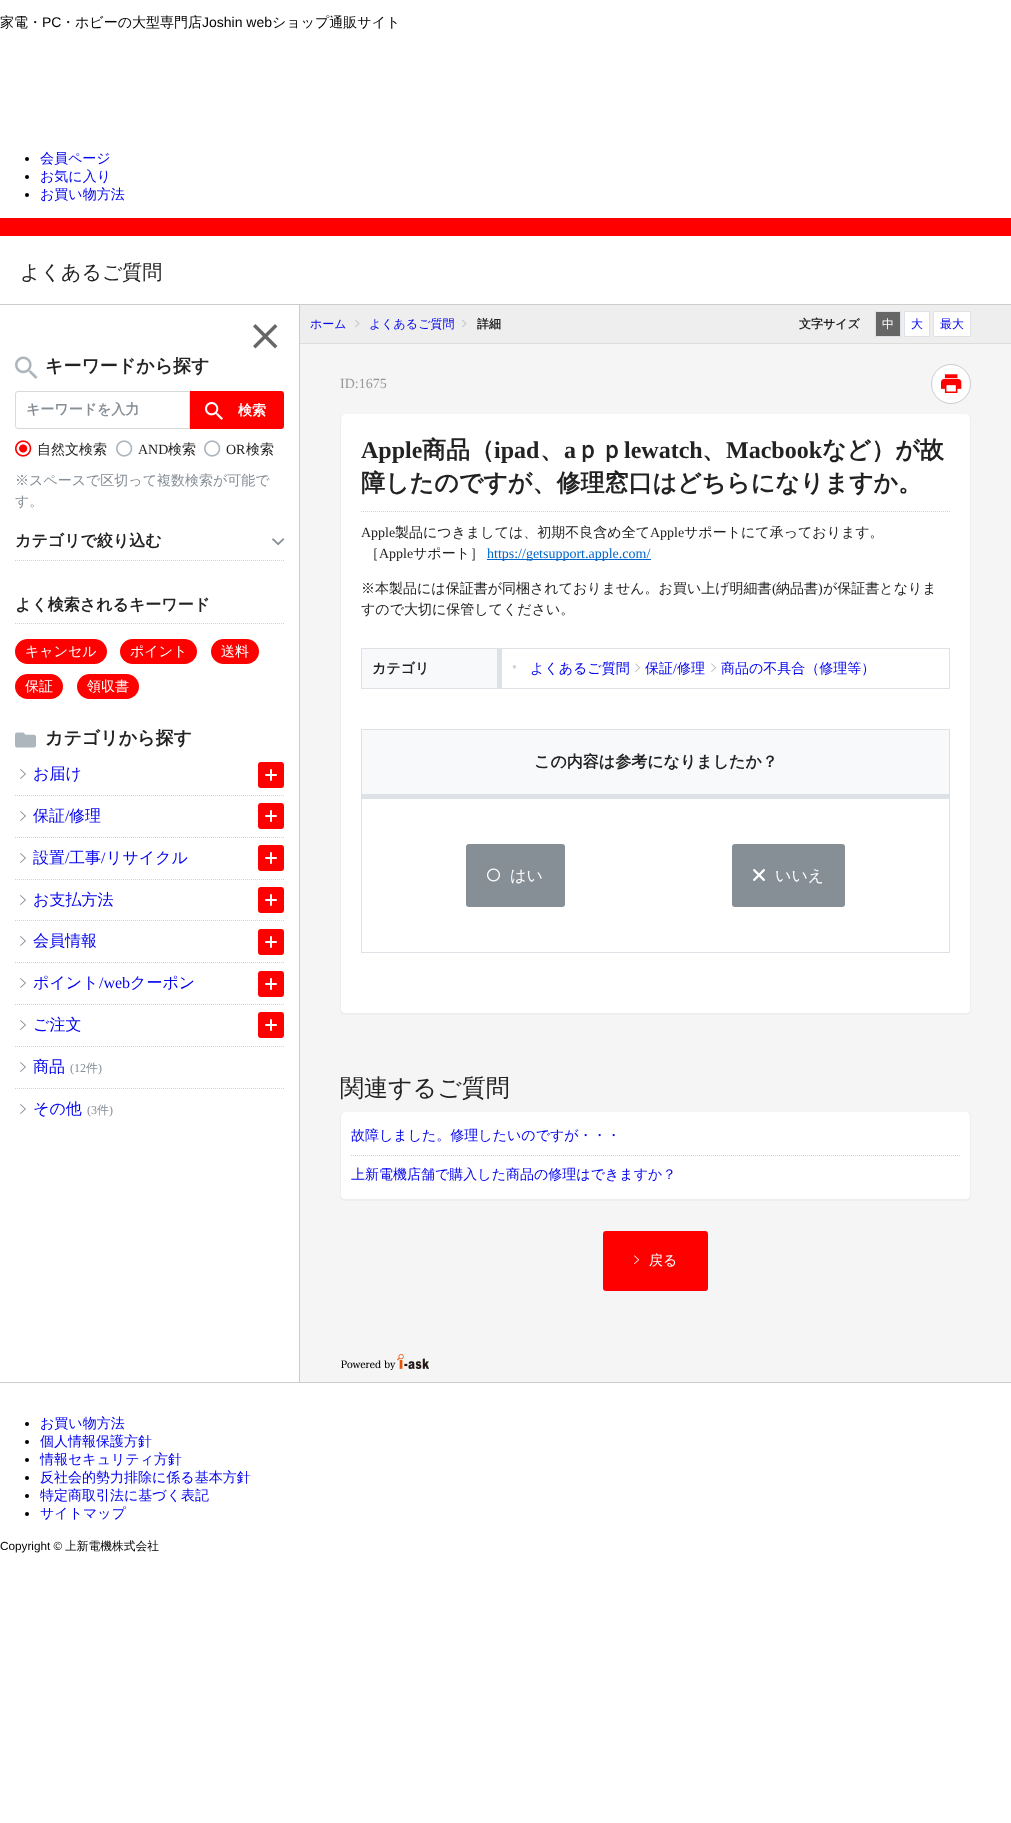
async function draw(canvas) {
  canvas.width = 1011
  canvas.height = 1823
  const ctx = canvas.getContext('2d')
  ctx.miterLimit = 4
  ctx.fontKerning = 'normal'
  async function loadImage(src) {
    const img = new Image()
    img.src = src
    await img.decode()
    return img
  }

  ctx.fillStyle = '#fff'
  ctx.fillRect(0, 0, 1011, 1823)
  ctx.font = '500 14px WenQuanYi Zen Hei'
  ctx.fillStyle = '#000'
  ctx.fillText('家電・', 0, 27)
  ctx.font = '14px Liberation Sans'
  ctx.fillText('PC', 42, 27)
  ctx.font = '500 14px WenQuanYi Zen Hei'
  ctx.fillText('・ホビーの大型専門店', 61, 27)
  ctx.font = '14px Liberation Sans'
  ctx.fillText('Joshin web', 202, 27)
  ctx.font = '500 14px WenQuanYi Zen Hei'
  ctx.fillText('ショップ通販サイト', 272, 27)
  ctx.beginPath()
  ctx.arc(27, 159, 2, 0, 2 * Math.PI)
  ctx.fill()
  ctx.fillStyle = '#00e'
  ctx.fillText('会員ページ', 40, 163)
  ctx.fillStyle = '#000'
  ctx.beginPath()
  ctx.arc(27, 177, 2, 0, 2 * Math.PI)
  ctx.fill()
  ctx.fillStyle = '#00e'
  ctx.fillText('お気に入り', 40, 181)
  ctx.fillStyle = '#000'
  ctx.beginPath()
  ctx.arc(27, 195, 2, 0, 2 * Math.PI)
  ctx.fill()
  ctx.fillStyle = '#00e'
  ctx.fillText('お買い物方法', 40, 199)
  ctx.fillStyle = '#f00'
  ctx.fillRect(0, 218, 1011, 18)
  ctx.fillStyle = '#f5f5f5'
  ctx.fillRect(300, 344, 711, 1038)
  ctx.fillStyle = '#ccc'
  ctx.fillRect(0, 304, 1011, 1)
  ctx.font = '500 20px WenQuanYi Zen Hei'
  ctx.fillStyle = '#222'
  ctx.fillText('よくあるご質問', 20, 279)
  ctx.fillStyle = '#ccc'
  ctx.fillRect(299, 305, 1, 1077)
  ctx.drawImage(await loadImage('image0.png'), 253, 324, 25, 25)
  ctx.drawImage(await loadImage('image1.png'), 15, 356, 23, 23)
  ctx.font = 'bold 18px WenQuanYi Zen Hei'
  ctx.fillStyle = '#222'
  ctx.fillText('キーワードから探す', 45, 372)
  ctx.beginPath()
  ctx.roundRect(15.5, 391.5, 174, 37, [2.5, 0, 0, 2.5])
  ctx.strokeStyle = '#d9d9d9'
  ctx.stroke()
  ctx.font = 'bold 14px WenQuanYi Zen Hei'
  ctx.fillStyle = '#868e96'
  ctx.fillText('キーワードを入力', 26, 414)
  ctx.fillStyle = '#f00'
  ctx.beginPath()
  ctx.roundRect(190, 391, 94, 38, [0, 3, 3, 0])
  ctx.fill()
  ctx.drawImage(await loadImage('image2.png'), 205, 402, 18, 18)
  ctx.fillStyle = '#fff'
  ctx.fillText('検索', 238, 415)
  ctx.drawImage(await loadImage('image3.png'), 15, 440, 17, 17)
  ctx.font = '500 14px WenQuanYi Zen Hei'
  ctx.fillStyle = '#222'
  ctx.fillText('自然文検索', 37, 454)
  ctx.drawImage(await loadImage('image4.png'), 116, 440, 17, 17)
  ctx.font = '14px Liberation Serif'
  ctx.fillText('AND', 138, 454)
  ctx.font = '500 14px WenQuanYi Zen Hei'
  ctx.fillText('検索', 168, 454)
  ctx.drawImage(await loadImage('image4.png'), 204, 440, 17, 17)
  ctx.font = '14px Liberation Serif'
  ctx.fillText('OR', 226, 454)
  ctx.font = '500 14px WenQuanYi Zen Hei'
  ctx.fillText('検索', 246, 454)
  ctx.fillStyle = '#868e96'
  ctx.fillText('※スペースで区切って複数検索が可能で', 15, 485)
  ctx.fillText('す。', 15, 506)
  ctx.beginPath()
  ctx.moveTo(15, 560.5)
  ctx.lineTo(284, 560.5)
  ctx.strokeStyle = '#ced4da'
  ctx.setLineDash([1, 1])
  ctx.stroke()
  ctx.font = 'bold 16px WenQuanYi Zen Hei'
  ctx.fillStyle = '#222'
  ctx.fillText('カテゴリで絞り込む', 15, 546)
  ctx.drawImage(await loadImage('image5.png'), 272, 538, 13, 8)
  ctx.beginPath()
  ctx.moveTo(15, 623.5)
  ctx.lineTo(284, 623.5)
  ctx.stroke()
  ctx.fillText('よく検索されるキーワード', 15, 610)
  ctx.fillStyle = '#f00'
  ctx.beginPath()
  ctx.roundRect(15, 639, 92, 25, 12.5)
  ctx.fill()
  ctx.font = '500 14px WenQuanYi Zen Hei'
  ctx.fillStyle = '#fff'
  ctx.fillText('キャンセル', 25, 656)
  ctx.fillStyle = '#f00'
  ctx.beginPath()
  ctx.roundRect(120, 639, 77, 25, 12.5)
  ctx.fill()
  ctx.fillStyle = '#fff'
  ctx.fillText('ポイント', 130, 656)
  ctx.fillStyle = '#f00'
  ctx.beginPath()
  ctx.roundRect(211, 639, 48, 25, 12.5)
  ctx.fill()
  ctx.fillStyle = '#fff'
  ctx.fillText('送料', 221, 656)
  ctx.fillStyle = '#f00'
  ctx.beginPath()
  ctx.roundRect(15, 674, 48, 25, 12.5)
  ctx.fill()
  ctx.fillStyle = '#fff'
  ctx.fillText('保証', 25, 691)
  ctx.fillStyle = '#f00'
  ctx.beginPath()
  ctx.roundRect(77, 674, 62, 25, 12.5)
  ctx.fill()
  ctx.fillStyle = '#fff'
  ctx.fillText('領収書', 87, 691)
  ctx.drawImage(await loadImage('image6.png'), 15, 732, 21, 16)
  ctx.font = 'bold 18px WenQuanYi Zen Hei'
  ctx.fillStyle = '#222'
  ctx.fillText('カテゴリから探す', 45, 744)
  ctx.drawImage(await loadImage('image7.png'), 20, 769, 6, 10)
  ctx.font = '500 16px WenQuanYi Zen Hei'
  ctx.fillStyle = '#00e'
  ctx.fillText('お届け', 33, 779)
  ctx.fillStyle = '#f00'
  ctx.beginPath()
  ctx.roundRect(258, 762, 26, 26, 3)
  ctx.fill()
  ctx.drawImage(await loadImage('image8.png'), 265, 769, 12, 12)
  ctx.beginPath()
  ctx.moveTo(15, 795.5)
  ctx.lineTo(284, 795.5)
  ctx.stroke()
  ctx.drawImage(await loadImage('image7.png'), 20, 811, 6, 10)
  ctx.fillStyle = '#00e'
  ctx.fillText('保証', 33, 821)
  ctx.font = '16px Liberation Serif'
  ctx.fillText('/', 65, 821)
  ctx.font = '500 16px WenQuanYi Zen Hei'
  ctx.fillText('修理', 69, 821)
  ctx.fillStyle = '#f00'
  ctx.beginPath()
  ctx.roundRect(258, 803, 26, 26, 3)
  ctx.fill()
  ctx.drawImage(await loadImage('image8.png'), 265, 810, 12, 12)
  ctx.beginPath()
  ctx.moveTo(15, 837.5)
  ctx.lineTo(284, 837.5)
  ctx.stroke()
  ctx.drawImage(await loadImage('image7.png'), 20, 853, 6, 10)
  ctx.fillStyle = '#00e'
  ctx.fillText('設置', 33, 863)
  ctx.font = '16px Liberation Serif'
  ctx.fillText('/', 65, 863)
  ctx.font = '500 16px WenQuanYi Zen Hei'
  ctx.fillText('工事', 69, 863)
  ctx.font = '16px Liberation Serif'
  ctx.fillText('/', 101, 863)
  ctx.font = '500 16px WenQuanYi Zen Hei'
  ctx.fillText('リサイクル', 106, 863)
  ctx.fillStyle = '#f00'
  ctx.beginPath()
  ctx.roundRect(258, 845, 26, 26, 3)
  ctx.fill()
  ctx.drawImage(await loadImage('image8.png'), 265, 852, 12, 12)
  ctx.beginPath()
  ctx.moveTo(15, 879.5)
  ctx.lineTo(284, 879.5)
  ctx.stroke()
  ctx.drawImage(await loadImage('image7.png'), 20, 895, 6, 10)
  ctx.fillStyle = '#00e'
  ctx.fillText('お支払方法', 33, 905)
  ctx.fillStyle = '#f00'
  ctx.beginPath()
  ctx.roundRect(258, 887, 26, 26, 3)
  ctx.fill()
  ctx.drawImage(await loadImage('image8.png'), 265, 894, 12, 12)
  ctx.beginPath()
  ctx.moveTo(15, 920.5)
  ctx.lineTo(284, 920.5)
  ctx.stroke()
  ctx.drawImage(await loadImage('image7.png'), 20, 936, 6, 10)
  ctx.fillStyle = '#00e'
  ctx.fillText('会員情報', 33, 946)
  ctx.fillStyle = '#f00'
  ctx.beginPath()
  ctx.roundRect(258, 929, 26, 26, 3)
  ctx.fill()
  ctx.drawImage(await loadImage('image8.png'), 265, 936, 12, 12)
  ctx.beginPath()
  ctx.moveTo(15, 962.5)
  ctx.lineTo(284, 962.5)
  ctx.stroke()
  ctx.drawImage(await loadImage('image7.png'), 20, 978, 6, 10)
  ctx.fillStyle = '#00e'
  ctx.fillText('ポイント', 33, 988)
  ctx.font = '16px Liberation Serif'
  ctx.fillText('/web', 99, 988)
  ctx.font = '500 16px WenQuanYi Zen Hei'
  ctx.fillText('クーポン', 130, 988)
  ctx.fillStyle = '#f00'
  ctx.beginPath()
  ctx.roundRect(258, 971, 26, 26, 3)
  ctx.fill()
  ctx.drawImage(await loadImage('image8.png'), 265, 978, 12, 12)
  ctx.beginPath()
  ctx.moveTo(15, 1004.5)
  ctx.lineTo(284, 1004.5)
  ctx.stroke()
  ctx.drawImage(await loadImage('image7.png'), 20, 1020, 6, 10)
  ctx.fillStyle = '#00e'
  ctx.fillText('ご注文', 33, 1030)
  ctx.fillStyle = '#f00'
  ctx.beginPath()
  ctx.roundRect(258, 1012, 26, 26, 3)
  ctx.fill()
  ctx.drawImage(await loadImage('image8.png'), 265, 1019, 12, 12)
  ctx.beginPath()
  ctx.moveTo(15, 1046.5)
  ctx.lineTo(284, 1046.5)
  ctx.stroke()
  ctx.drawImage(await loadImage('image7.png'), 20, 1062, 6, 10)
  ctx.fillStyle = '#00e'
  ctx.fillText('商品', 33, 1072)
  ctx.font = '12px Liberation Serif'
  ctx.fillStyle = '#868e96'
  ctx.fillText('(12', 70, 1072)
  ctx.font = '500 12px WenQuanYi Zen Hei'
  ctx.fillText('件', 86, 1072)
  ctx.font = '12px Liberation Serif'
  ctx.fillText(')', 98, 1072)
  ctx.beginPath()
  ctx.moveTo(15, 1088.5)
  ctx.lineTo(284, 1088.5)
  ctx.stroke()
  ctx.drawImage(await loadImage('image7.png'), 20, 1104, 6, 10)
  ctx.font = '500 16px WenQuanYi Zen Hei'
  ctx.fillStyle = '#00e'
  ctx.fillText('その他', 33, 1114)
  ctx.font = '12px Liberation Serif'
  ctx.fillStyle = '#868e96'
  ctx.fillText('(3', 87, 1114)
  ctx.font = '500 12px WenQuanYi Zen Hei'
  ctx.fillText('件', 97, 1114)
  ctx.font = '12px Liberation Serif'
  ctx.fillText(')', 109, 1114)
  ctx.fillStyle = '#eee'
  ctx.fillRect(300, 305, 711, 38)
  ctx.fillStyle = '#ddd'
  ctx.fillRect(300, 343, 711, 1)
  ctx.font = '500 12px WenQuanYi Zen Hei'
  ctx.fillStyle = '#00e'
  ctx.fillText('ホーム', 310, 328)
  ctx.drawImage(await loadImage('image9.png'), 355, 319, 5, 9)
  ctx.fillText('よくあるご質問', 369, 328)
  ctx.drawImage(await loadImage('image9.png'), 462, 319, 5, 9)
  ctx.font = 'bold 12px WenQuanYi Zen Hei'
  ctx.fillStyle = '#222'
  ctx.fillText('詳細', 477, 328)
  ctx.fillText('文字サイズ', 799, 328)
  ctx.fillStyle = '#666'
  ctx.beginPath()
  ctx.rect(875.5, 311.5, 25, 25)
  ctx.fill()
  ctx.strokeStyle = '#dee2e6'
  ctx.setLineDash([])
  ctx.stroke()
  ctx.font = '500 12px WenQuanYi Zen Hei'
  ctx.fillStyle = '#fff'
  ctx.fillText('中', 882, 328)
  ctx.beginPath()
  ctx.rect(904.5, 311.5, 25, 25)
  ctx.fill()
  ctx.stroke()
  ctx.fillStyle = '#00e'
  ctx.fillText('大', 911, 328)
  ctx.fillStyle = '#fff'
  ctx.beginPath()
  ctx.rect(933.5, 311.5, 37, 25)
  ctx.fill()
  ctx.stroke()
  ctx.fillStyle = '#00e'
  ctx.fillText('最大', 940, 328)
  ctx.font = '14px Liberation Serif'
  ctx.fillStyle = '#999'
  ctx.fillText('ID:1675', 340, 388)
  ctx.fillStyle = '#fff'
  ctx.beginPath()
  ctx.arc(951, 384, 19.5, 0, 2 * Math.PI)
  ctx.fill()
  ctx.strokeStyle = '#ccc'
  ctx.stroke()
  ctx.drawImage(await loadImage('image10.png'), 941, 374, 21, 19)
  ctx.beginPath()
  ctx.moveTo(345, 414)
  ctx.lineTo(966, 414)
  ctx.bezierCurveTo(968, 414, 970, 416, 970, 419)
  ctx.lineTo(970, 1010)
  ctx.bezierCurveTo(970, 1012, 968, 1013, 966, 1013)
  ctx.lineTo(345, 1013)
  ctx.bezierCurveTo(343, 1013, 341, 1012, 341, 1010)
  ctx.lineTo(341, 419)
  ctx.bezierCurveTo(341, 416, 343, 414, 345, 414)
  ctx.closePath()
  ctx.fill()
  ctx.fillStyle = '#eee'
  ctx.beginPath()
  ctx.moveTo(345, 414)
  ctx.lineTo(966, 414)
  ctx.bezierCurveTo(969, 414, 971, 416, 971, 419)
  ctx.lineTo(971, 1010)
  ctx.bezierCurveTo(971, 1013, 969, 1015, 966, 1015)
  ctx.lineTo(345, 1015)
  ctx.bezierCurveTo(342, 1015, 340, 1013, 340, 1010)
  ctx.lineTo(340, 419)
  ctx.bezierCurveTo(340, 416, 342, 414, 345, 414)
  ctx.closePath()
  ctx.moveTo(345, 414)
  ctx.lineTo(966, 414)
  ctx.bezierCurveTo(968, 414, 970, 416, 970, 419)
  ctx.lineTo(970, 1010)
  ctx.bezierCurveTo(970, 1012, 968, 1013, 966, 1013)
  ctx.lineTo(345, 1013)
  ctx.bezierCurveTo(343, 1013, 341, 1012, 341, 1010)
  ctx.lineTo(341, 419)
  ctx.bezierCurveTo(341, 416, 343, 414, 345, 414)
  ctx.closePath()
  ctx.fill('evenodd')
  ctx.beginPath()
  ctx.moveTo(361, 511.5)
  ctx.lineTo(950, 511.5)
  ctx.strokeStyle = '#ced4da'
  ctx.setLineDash([1, 1])
  ctx.stroke()
  ctx.font = 'bold 24px Liberation Serif'
  ctx.fillStyle = '#222'
  ctx.fillText('Apple', 361, 458)
  ctx.font = 'bold 24px WenQuanYi Zen Hei'
  ctx.fillText('商品（', 422, 458)
  ctx.font = 'bold 24px Liberation Serif'
  ctx.fillText('ipad', 494, 458)
  ctx.font = 'bold 24px WenQuanYi Zen Hei'
  ctx.fillText('、', 540, 458)
  ctx.font = 'bold 24px Liberation Serif'
  ctx.fillText('a', 564, 458)
  ctx.font = 'bold 24px WenQuanYi Zen Hei'
  ctx.fillText('ｐｐ', 576, 458)
  ctx.font = 'bold 24px Liberation Serif'
  ctx.fillText('lewatch', 624, 458)
  ctx.font = 'bold 24px WenQuanYi Zen Hei'
  ctx.fillText('、', 702, 458)
  ctx.font = 'bold 24px Liberation Serif'
  ctx.fillText('Macbook', 726, 458)
  ctx.font = 'bold 24px WenQuanYi Zen Hei'
  ctx.fillText('など）が故', 822, 458)
  ctx.fillText('障したのですが、修理窓口はどちらになりますか。', 361, 491)
  ctx.font = '14px Liberation Serif'
  ctx.fillText('Apple', 361, 537)
  ctx.font = '500 14px WenQuanYi Zen Hei'
  ctx.fillText('製品につきましては、初期不良含め全て', 395, 537)
  ctx.font = '14px Liberation Serif'
  ctx.fillText('Apple', 650, 537)
  ctx.font = '500 14px WenQuanYi Zen Hei'
  ctx.fillText('サポートにて承っております。', 684, 537)
  ctx.fillText('［', 365, 558)
  ctx.font = '14px Liberation Serif'
  ctx.fillText('Apple', 379, 558)
  ctx.font = '500 14px WenQuanYi Zen Hei'
  ctx.fillText('サポート］', 413, 558)
  ctx.fillStyle = '#0066cb'
  ctx.fillRect(487, 559, 164, 1)
  ctx.font = '14px Liberation Serif'
  ctx.fillText('https://getsupport.apple.com/', 487, 558)
  ctx.font = '500 14px WenQuanYi Zen Hei'
  ctx.fillStyle = '#222'
  ctx.fillText('※本製品には保証書が同梱されておりません。お買い上げ明細書', 361, 593)
  ctx.font = '14px Liberation Serif'
  ctx.fillText('(', 772, 593)
  ctx.font = '500 14px WenQuanYi Zen Hei'
  ctx.fillText('納品書', 776, 593)
  ctx.font = '14px Liberation Serif'
  ctx.fillText(')', 818, 593)
  ctx.font = '500 14px WenQuanYi Zen Hei'
  ctx.fillText('が保証書となりま', 823, 593)
  ctx.fillText('すので大切に保管してください。', 361, 614)
  ctx.fillStyle = '#f8f9fa'
  ctx.fillRect(362, 649, 135, 39)
  ctx.fillStyle = '#dee2e6'
  ctx.fillRect(361, 648, 140, 1)
  ctx.fillRect(497, 648, 4, 41)
  ctx.fillRect(361, 688, 140, 1)
  ctx.fillRect(361, 648, 1, 41)
  ctx.font = 'bold 14px WenQuanYi Zen Hei'
  ctx.fillStyle = '#222'
  ctx.fillText('カテゴリ', 372, 673)
  ctx.strokeStyle = '#dee2e6'
  ctx.setLineDash([])
  ctx.strokeRect(501.5, 648.5, 448, 40)
  ctx.font = '8px Liberation Serif'
  ctx.fillStyle = '#ced4da'
  ctx.fillText('●', 512, 669)
  ctx.font = '500 14px WenQuanYi Zen Hei'
  ctx.fillStyle = '#00e'
  ctx.fillText('よくあるご質問', 530, 673)
  ctx.drawImage(await loadImage('image11.png'), 635, 663, 6, 9)
  ctx.fillText('保証', 645, 673)
  ctx.font = '14px Liberation Serif'
  ctx.fillText('/', 673, 673)
  ctx.font = '500 14px WenQuanYi Zen Hei'
  ctx.fillText('修理', 677, 673)
  ctx.drawImage(await loadImage('image11.png'), 711, 663, 6, 9)
  ctx.fillText('商品の不具合（修理等）', 721, 673)
  ctx.strokeRect(361.5, 729.5, 588, 223)
  ctx.fillStyle = '#f8f9fa'
  ctx.fillRect(362, 730, 587, 64)
  ctx.fillStyle = '#dee2e6'
  ctx.fillRect(362, 794, 587, 5)
  ctx.font = 'bold 16px WenQuanYi Zen Hei'
  ctx.fillStyle = '#222'
  ctx.fillText('この内容は参考になりましたか？', 534, 767)
  ctx.fillStyle = '#868e96'
  ctx.beginPath()
  ctx.roundRect(466, 844, 99, 63, 3)
  ctx.fill()
  ctx.drawImage(await loadImage('image12.png'), 487, 868, 13, 14)
  ctx.font = '500 16px WenQuanYi Zen Hei'
  ctx.fillStyle = '#fff'
  ctx.fillText('はい', 510, 881)
  ctx.fillStyle = '#868e96'
  ctx.beginPath()
  ctx.roundRect(732, 844, 113, 63, 3)
  ctx.fill()
  ctx.drawImage(await loadImage('image13.png'), 753, 869, 12, 12)
  ctx.fillStyle = '#fff'
  ctx.fillText('いいえ', 775, 881)
  ctx.font = '500 24px WenQuanYi Zen Hei'
  ctx.fillStyle = '#222'
  ctx.fillText('関連するご質問', 340, 1096)
  ctx.fillStyle = '#fff'
  ctx.beginPath()
  ctx.moveTo(345, 1112)
  ctx.lineTo(966, 1112)
  ctx.bezierCurveTo(968, 1112, 970, 1114, 970, 1117)
  ctx.lineTo(970, 1196)
  ctx.bezierCurveTo(970, 1198, 968, 1199, 966, 1199)
  ctx.lineTo(345, 1199)
  ctx.bezierCurveTo(343, 1199, 341, 1198, 341, 1196)
  ctx.lineTo(341, 1117)
  ctx.bezierCurveTo(341, 1114, 343, 1112, 345, 1112)
  ctx.closePath()
  ctx.fill()
  ctx.fillStyle = '#eee'
  ctx.beginPath()
  ctx.moveTo(345, 1112)
  ctx.lineTo(966, 1112)
  ctx.bezierCurveTo(969, 1112, 971, 1114, 971, 1117)
  ctx.lineTo(971, 1196)
  ctx.bezierCurveTo(971, 1199, 969, 1201, 966, 1201)
  ctx.lineTo(345, 1201)
  ctx.bezierCurveTo(342, 1201, 340, 1199, 340, 1196)
  ctx.lineTo(340, 1117)
  ctx.bezierCurveTo(340, 1114, 342, 1112, 345, 1112)
  ctx.closePath()
  ctx.moveTo(345, 1112)
  ctx.lineTo(966, 1112)
  ctx.bezierCurveTo(968, 1112, 970, 1114, 970, 1117)
  ctx.lineTo(970, 1196)
  ctx.bezierCurveTo(970, 1198, 968, 1199, 966, 1199)
  ctx.lineTo(345, 1199)
  ctx.bezierCurveTo(343, 1199, 341, 1198, 341, 1196)
  ctx.lineTo(341, 1117)
  ctx.bezierCurveTo(341, 1114, 343, 1112, 345, 1112)
  ctx.closePath()
  ctx.fill('evenodd')
  ctx.font = '500 14px WenQuanYi Zen Hei'
  ctx.fillStyle = '#00e'
  ctx.fillText('故障しました。修理したいのですが・・・', 351, 1140)
  ctx.beginPath()
  ctx.moveTo(351, 1155.5)
  ctx.lineTo(960, 1155.5)
  ctx.strokeStyle = '#ced4da'
  ctx.setLineDash([1, 1])
  ctx.stroke()
  ctx.fillText('上新電機店舗で購入した商品の修理はできますか？', 351, 1179)
  ctx.fillStyle = '#f00'
  ctx.beginPath()
  ctx.roundRect(603, 1231, 105, 60, 3)
  ctx.fill()
  ctx.drawImage(await loadImage('image14.png'), 634, 1255, 6, 9)
  ctx.fillStyle = '#fff'
  ctx.fillText('戻る', 649, 1265)
  ctx.drawImage(await loadImage('image15.png'), 341, 1354, 88, 16)
  ctx.fillStyle = '#ccc'
  ctx.fillRect(0, 1382, 1011, 1)
  ctx.fillStyle = '#000'
  ctx.beginPath()
  ctx.arc(27, 1424, 2, 0, 2 * Math.PI)
  ctx.fill()
  ctx.fillStyle = '#00e'
  ctx.fillText('お買い物方法', 40, 1428)
  ctx.fillStyle = '#000'
  ctx.beginPath()
  ctx.arc(27, 1442, 2, 0, 2 * Math.PI)
  ctx.fill()
  ctx.fillStyle = '#00e'
  ctx.fillText('個人情報保護方針', 40, 1446)
  ctx.fillStyle = '#000'
  ctx.beginPath()
  ctx.arc(27, 1460, 2, 0, 2 * Math.PI)
  ctx.fill()
  ctx.fillStyle = '#00e'
  ctx.fillText('情報セキュリティ方針', 40, 1464)
  ctx.fillStyle = '#000'
  ctx.beginPath()
  ctx.arc(27, 1478, 2, 0, 2 * Math.PI)
  ctx.fill()
  ctx.fillStyle = '#00e'
  ctx.fillText('反社会的勢力排除に係る基本方針', 40, 1482)
  ctx.fillStyle = '#000'
  ctx.beginPath()
  ctx.arc(27, 1496, 2, 0, 2 * Math.PI)
  ctx.fill()
  ctx.fillStyle = '#00e'
  ctx.fillText('特定商取引法に基づく表記', 40, 1500)
  ctx.fillStyle = '#000'
  ctx.beginPath()
  ctx.arc(27, 1514, 2, 0, 2 * Math.PI)
  ctx.fill()
  ctx.fillStyle = '#00e'
  ctx.fillText('サイトマップ', 40, 1518)
  ctx.font = '11.75px Liberation Sans'
  ctx.fillStyle = '#000'
  ctx.fillText('Copyright ©', 0, 1550)
  ctx.font = '500 11.75px WenQuanYi Zen Hei'
  ctx.fillText('上新電機株式会社', 65, 1550)
}

draw(document.querySelector('canvas'))
